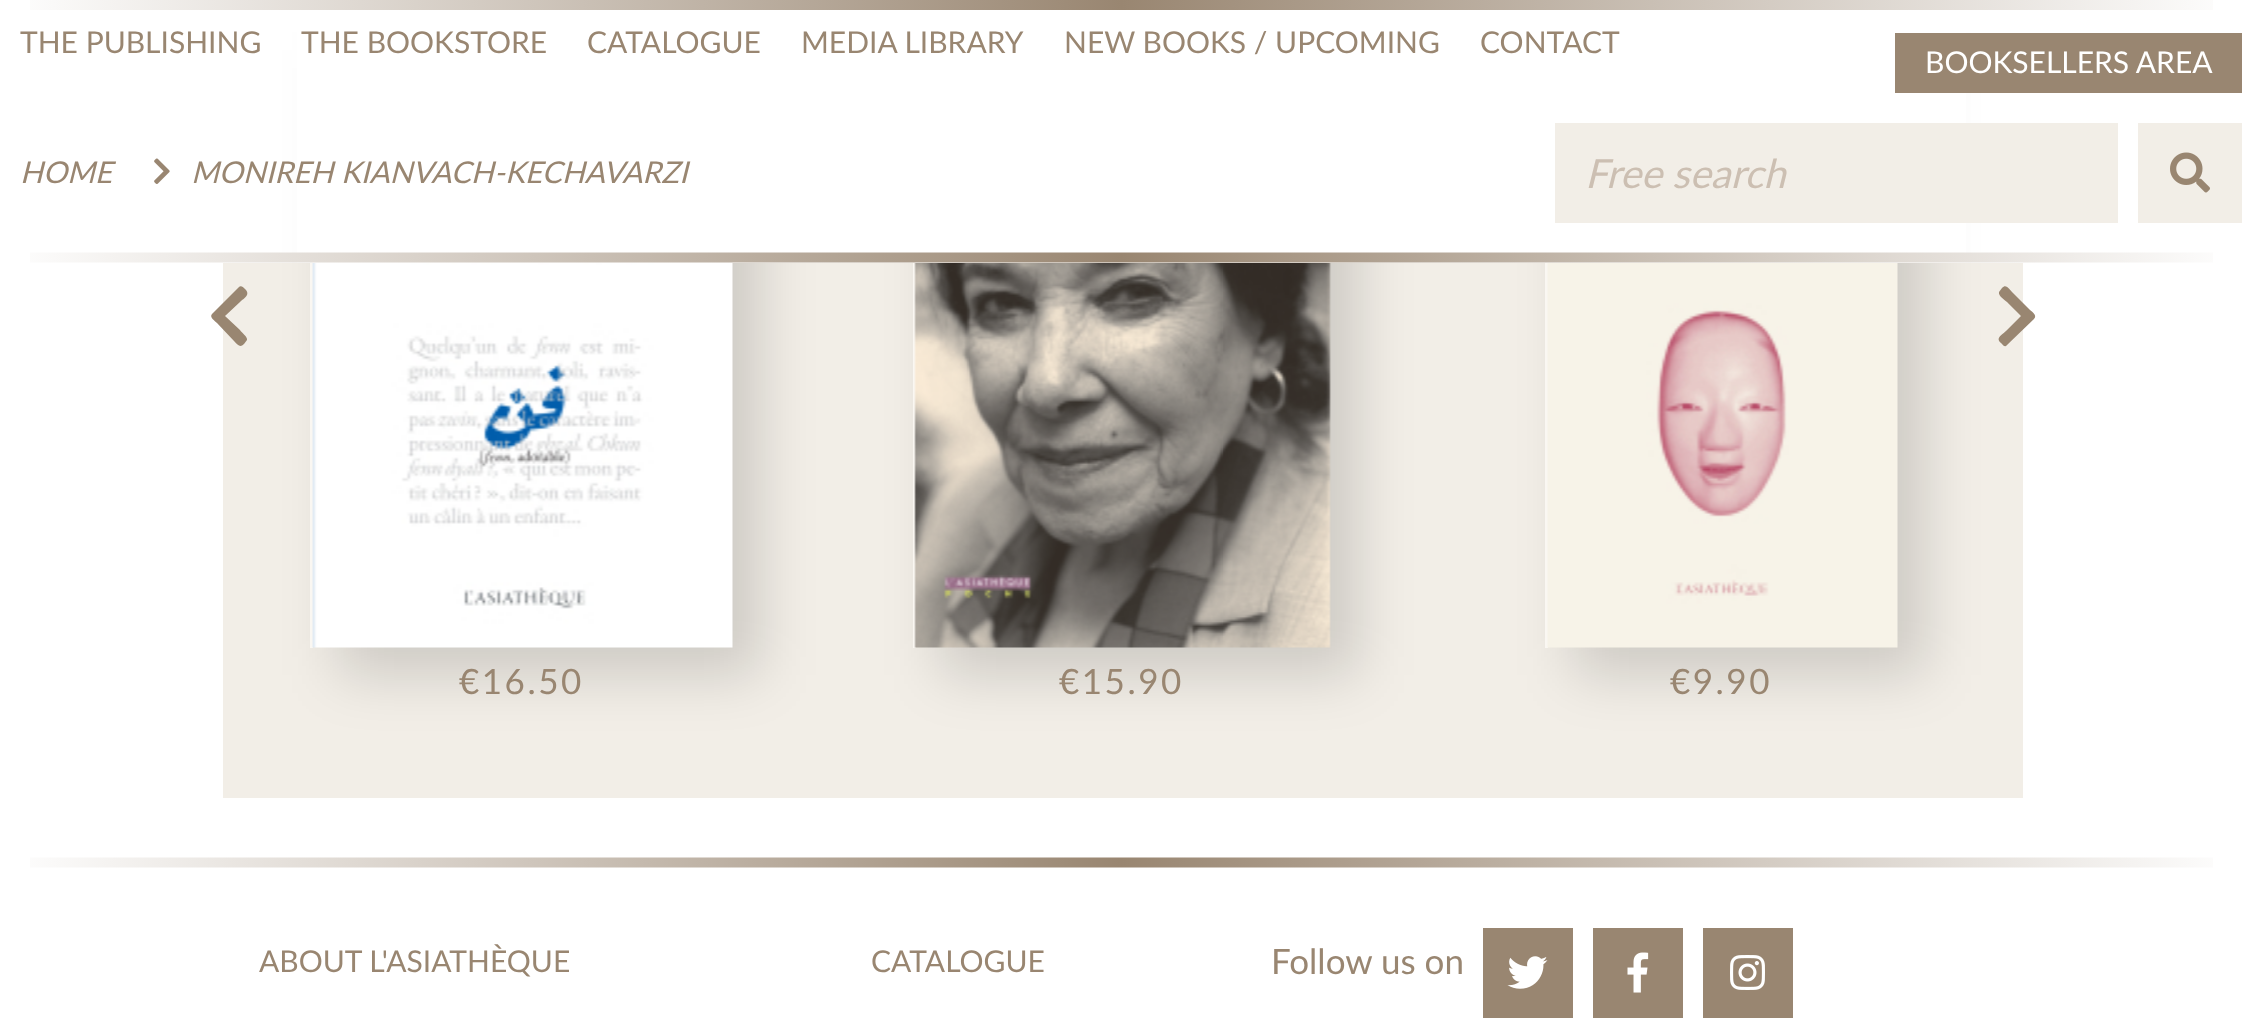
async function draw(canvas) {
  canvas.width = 2242
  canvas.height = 1026
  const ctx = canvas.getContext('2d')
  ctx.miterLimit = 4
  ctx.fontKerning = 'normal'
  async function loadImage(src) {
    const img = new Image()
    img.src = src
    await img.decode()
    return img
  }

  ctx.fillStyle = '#fff'
  ctx.fillRect(0, 0, 2242, 1026)
  ctx.fillStyle = '#f2eee7'
  ctx.fillRect(223, 263, 1800, 535)
  ctx.fillStyle = '#00000026'
  ctx.filter = 'blur(27.5px)'
  ctx.beginPath()
  ctx.rect(338, 50, 422, 625)
  ctx.fill()
  ctx.filter = 'none'
  ctx.filter = 'blur(27.5px)'
  ctx.beginPath()
  ctx.rect(940, 50, 418, 625)
  ctx.fill()
  ctx.filter = 'none'
  ctx.filter = 'blur(27.5px)'
  ctx.beginPath()
  ctx.rect(1573, 50, 352, 625)
  ctx.fill()
  ctx.filter = 'none'
  ctx.fillStyle = '#fff'
  ctx.fillRect(297, 9, 1669, 254)
  ctx.drawImage(await loadImage('image0.png'), 30, 0, 2183, 263)
  ctx.font = '30px Lato'
  ctx.fillStyle = '#998671'
  ctx.fillText('THE PUBLISHING', 20, 53)
  ctx.fillText('THE BOOKSTORE', 301, 53)
  ctx.fillText('CATALOGUE', 587, 53)
  ctx.fillText('MEDIA LIBRARY', 801, 53)
  ctx.fillText('NEW BOOKS / UPCOMING', 1064, 53)
  ctx.fillText('CONTACT', 1480, 53)
  ctx.fillRect(1895, 33, 347, 60)
  ctx.fillStyle = '#fff'
  ctx.fillText('BOOKSELLERS AREA', 1925, 73)
  ctx.font = 'italic 30px Lato'
  ctx.fillStyle = '#998671'
  ctx.fillText('HOME', 20, 183)
  ctx.drawImage(await loadImage('image1.png'), 154, 158, 16, 26)
  ctx.fillText('MONIREH KIANVACH-KECHAVARZI', 191, 183)
  ctx.fillStyle = '#f2eee7'
  ctx.fillRect(1555, 123, 563, 100)
  ctx.font = 'italic 40px Lato'
  ctx.fillStyle = '#ccbfb2'
  ctx.fillText('Free search', 1585, 188)
  ctx.fillStyle = '#f2eee7'
  ctx.fillRect(2138, 123, 104, 100)
  ctx.drawImage(await loadImage('image2.png'), 2170, 152, 40, 41)
  ctx.fillStyle = '#998671'
  ctx.beginPath()
  ctx.moveTo(212, 314)
  ctx.lineTo(239, 287)
  ctx.bezierCurveTo(241, 285, 244, 288, 245, 289)
  ctx.bezierCurveTo(251, 295, 244, 298, 240, 302)
  ctx.lineTo(225, 316)
  ctx.lineTo(240, 330)
  ctx.bezierCurveTo(241, 332, 248, 337, 247, 340)
  ctx.lineTo(244, 344)
  ctx.bezierCurveTo(240, 348, 238, 345, 234, 341)
  ctx.lineTo(217, 323)
  ctx.bezierCurveTo(215, 321, 209, 317, 212, 314)
  ctx.closePath()
  ctx.fill()
  ctx.beginPath()
  ctx.moveTo(2034, 319)
  ctx.lineTo(2007, 345)
  ctx.bezierCurveTo(2005, 348, 2003, 345, 2001, 343)
  ctx.bezierCurveTo(1995, 338, 2002, 335, 2007, 330)
  ctx.lineTo(2021, 316)
  ctx.lineTo(2007, 302)
  ctx.bezierCurveTo(2005, 300, 1998, 296, 1999, 292)
  ctx.lineTo(2002, 288)
  ctx.bezierCurveTo(2006, 284, 2008, 288, 2012, 292)
  ctx.lineTo(2030, 310)
  ctx.bezierCurveTo(2031, 311, 2038, 315, 2034, 319)
  ctx.closePath()
  ctx.fill()
  ctx.fillStyle = '#faf7f2'
  ctx.fillRect(310, 263, 3, 385)
  ctx.drawImage(await loadImage('image3.png'), 312, 263, 421, 385)
  ctx.letterSpacing = '2.5px'
  ctx.font = '35px Lato'
  ctx.fillStyle = '#998671'
  ctx.fillText('€16.50', 459, 694)
  ctx.fillStyle = '#faf7f2'
  ctx.fillRect(913, 263, 3, 385)
  ctx.drawImage(await loadImage('image4.png'), 914, 263, 417, 385)
  ctx.fillStyle = '#998671'
  ctx.fillText('€15.90', 1059, 694)
  ctx.fillStyle = '#faf7f2'
  ctx.fillRect(1545, 263, 3, 385)
  ctx.drawImage(await loadImage('image5.png'), 1547, 263, 351, 385)
  ctx.fillStyle = '#998671'
  ctx.fillText('€9.90', 1670, 694)
  ctx.drawImage(await loadImage('image6.png'), 30, 857, 2183, 11)
  ctx.letterSpacing = '0px'
  ctx.font = '30px Lato'
  ctx.fillText('ABOUT L\'ASIATHÈQUE', 259, 972)
  ctx.fillText('CATALOGUE', 871, 972)
  ctx.font = '35px Lato'
  ctx.fillText('Follow us on', 1271, 974)
  ctx.fillRect(1483, 928, 90, 90)
  ctx.drawImage(await loadImage('image7.png'), 1507, 956, 41, 33)
  ctx.fillRect(1593, 928, 90, 90)
  ctx.drawImage(await loadImage('image8.png'), 1627, 952, 22, 41)
  ctx.fillRect(1703, 928, 90, 90)
  ctx.drawImage(await loadImage('image9.png'), 1730, 955, 35, 35)
}

draw(document.querySelector('canvas'))
